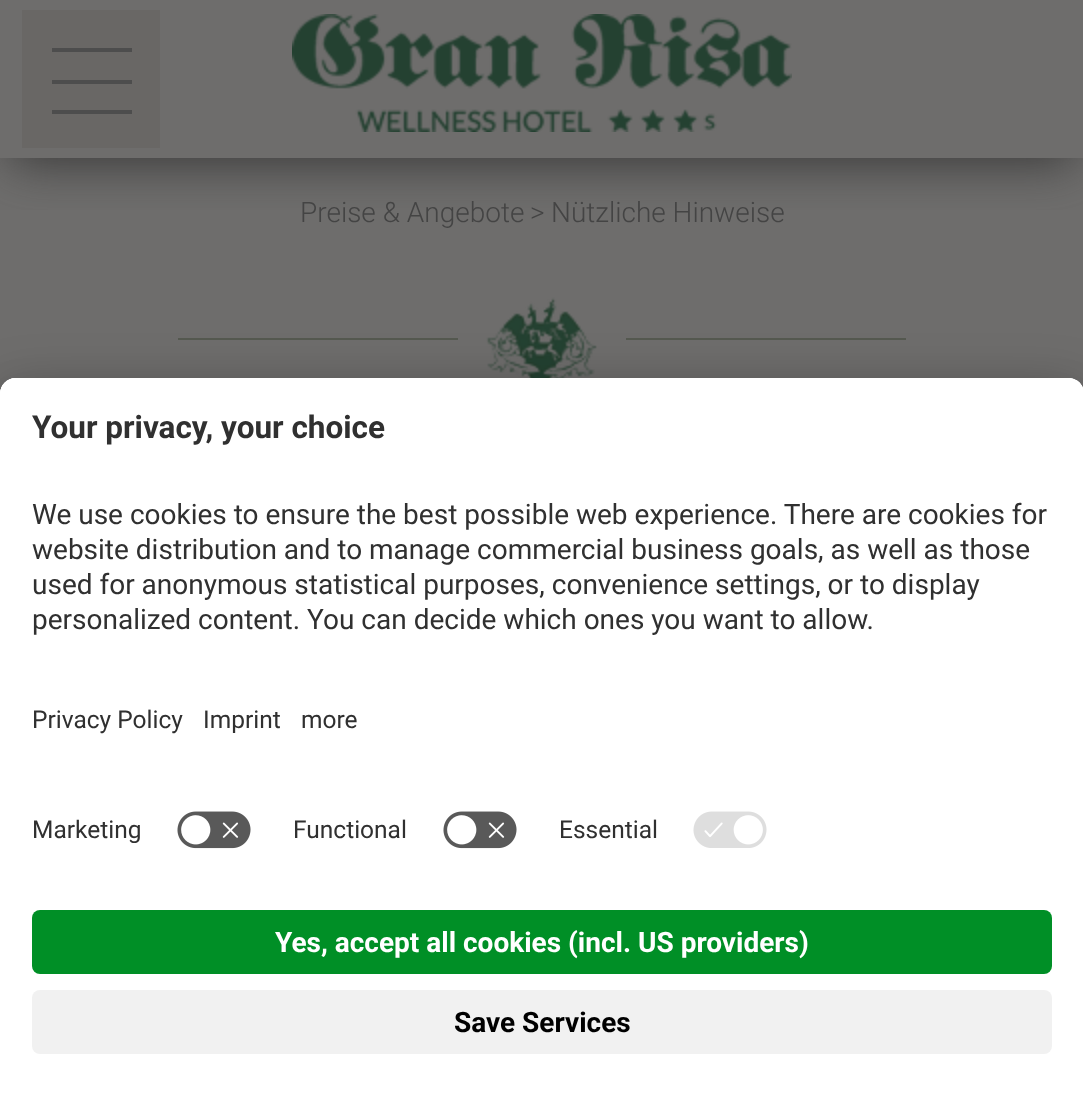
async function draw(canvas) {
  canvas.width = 1083
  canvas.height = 1109
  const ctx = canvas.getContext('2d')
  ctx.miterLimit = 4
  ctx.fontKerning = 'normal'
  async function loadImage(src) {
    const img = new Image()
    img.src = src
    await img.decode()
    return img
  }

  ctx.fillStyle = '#6e6d6c'
  ctx.fillRect(0, 0, 1083, 1109)
  ctx.save()
  ctx.beginPath()
  ctx.rect(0, 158, 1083, 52)
  ctx.clip()
  ctx.fillStyle = '#242424bf'
  ctx.filter = 'blur(25px)'
  ctx.beginPath()
  ctx.rect(10, 24, 1064, 138)
  ctx.fill()
  ctx.filter = 'none'
  ctx.restore()
  ctx.fillStyle = '#696765'
  ctx.fillRect(22, 10, 138, 138)
  ctx.fillStyle = '#4d4d4d'
  ctx.fillRect(52, 48, 80, 4)
  ctx.fillRect(52, 80, 80, 4)
  ctx.fillRect(52, 110, 80, 4)
  ctx.drawImage(await loadImage('image0.png'), 292, 14, 500, 118)
  ctx.font = '300 28px Roboto'
  ctx.fillStyle = '#444'
  ctx.fillText('Preise & Angebote', 300, 222)
  ctx.fillText('>', 530, 222)
  ctx.fillText('Nützliche Hinweise', 551, 222)
  ctx.fillStyle = '#555950'
  ctx.fillRect(178, 338, 280, 2)
  ctx.drawImage(await loadImage('image1.png'), 486, 297, 111, 81)
  ctx.fillRect(626, 338, 280, 2)
  ctx.fillStyle = '#0000004d'
  ctx.filter = 'blur(28px)'
  ctx.beginPath()
  ctx.roundRect(0, 418, 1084, 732, 16)
  ctx.fill()
  ctx.filter = 'none'
  ctx.fillStyle = '#00000038'
  ctx.filter = 'blur(26px)'
  ctx.beginPath()
  ctx.roundRect(0, 388, 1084, 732, 16)
  ctx.fill()
  ctx.filter = 'none'
  ctx.fillStyle = '#fff'
  ctx.beginPath()
  ctx.moveTo(16, 378)
  ctx.lineTo(1068, 378)
  ctx.bezierCurveTo(1077, 378, 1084, 385, 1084, 394)
  ctx.lineTo(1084, 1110)
  ctx.lineTo(0, 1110)
  ctx.lineTo(0, 394)
  ctx.bezierCurveTo(0, 385, 7, 378, 16, 378)
  ctx.closePath()
  ctx.fill()
  ctx.beginPath()
  ctx.moveTo(16, 378)
  ctx.lineTo(1068, 378)
  ctx.bezierCurveTo(1077, 378, 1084, 385, 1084, 394)
  ctx.lineTo(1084, 886)
  ctx.lineTo(0, 886)
  ctx.lineTo(0, 394)
  ctx.bezierCurveTo(0, 385, 7, 378, 16, 378)
  ctx.closePath()
  ctx.fill()
  ctx.beginPath()
  ctx.moveTo(16, 378)
  ctx.lineTo(1068, 378)
  ctx.bezierCurveTo(1077, 378, 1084, 385, 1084, 394)
  ctx.lineTo(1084, 798)
  ctx.lineTo(0, 798)
  ctx.lineTo(0, 394)
  ctx.bezierCurveTo(0, 385, 7, 378, 16, 378)
  ctx.closePath()
  ctx.fill()
  ctx.font = 'bold 31.5px Roboto'
  ctx.fillStyle = '#303030'
  ctx.fillText('Your privacy, your choice', 32, 438)
  ctx.font = '28px Roboto'
  ctx.fillText('We use cookies to ensure the best possible web experience. There are cookies for', 32, 524)
  ctx.fillText('website distribution and to manage commercial business goals, as well as those', 32, 559)
  ctx.fillText('used for anonymous statistical purposes, convenience settings, or to display', 32, 594)
  ctx.fillText('personalized content. You can decide which ones you want to allow.', 32, 629)
  ctx.font = '24.5px Roboto'
  ctx.fillText('Privacy Policy', 32, 728)
  ctx.fillText('Imprint', 203, 728)
  ctx.fillText('more', 301, 728)
  ctx.fillText('Marketing', 32, 838)
  ctx.drawImage(await loadImage('image2.png'), 177, 811, 74, 38)
  ctx.fillText('Functional', 293, 838)
  ctx.drawImage(await loadImage('image2.png'), 443, 811, 74, 38)
  ctx.fillText('Essential', 559, 838)
  ctx.drawImage(await loadImage('image3.png'), 693, 811, 74, 37)
  ctx.fillStyle = '#008f26'
  ctx.beginPath()
  ctx.roundRect(32, 910, 1020, 64, 8)
  ctx.fill()
  ctx.font = 'bold 28px Roboto'
  ctx.fillStyle = '#fff'
  ctx.fillText('Yes, accept all cookies (incl. US providers)', 275, 952)
  ctx.fillStyle = '#f1f1f1'
  ctx.beginPath()
  ctx.roundRect(32, 990, 1020, 64, 8)
  ctx.fill()
  ctx.fillStyle = '#000'
  ctx.fillText('Save Services', 454, 1032)
}

draw(document.querySelector('canvas'))
